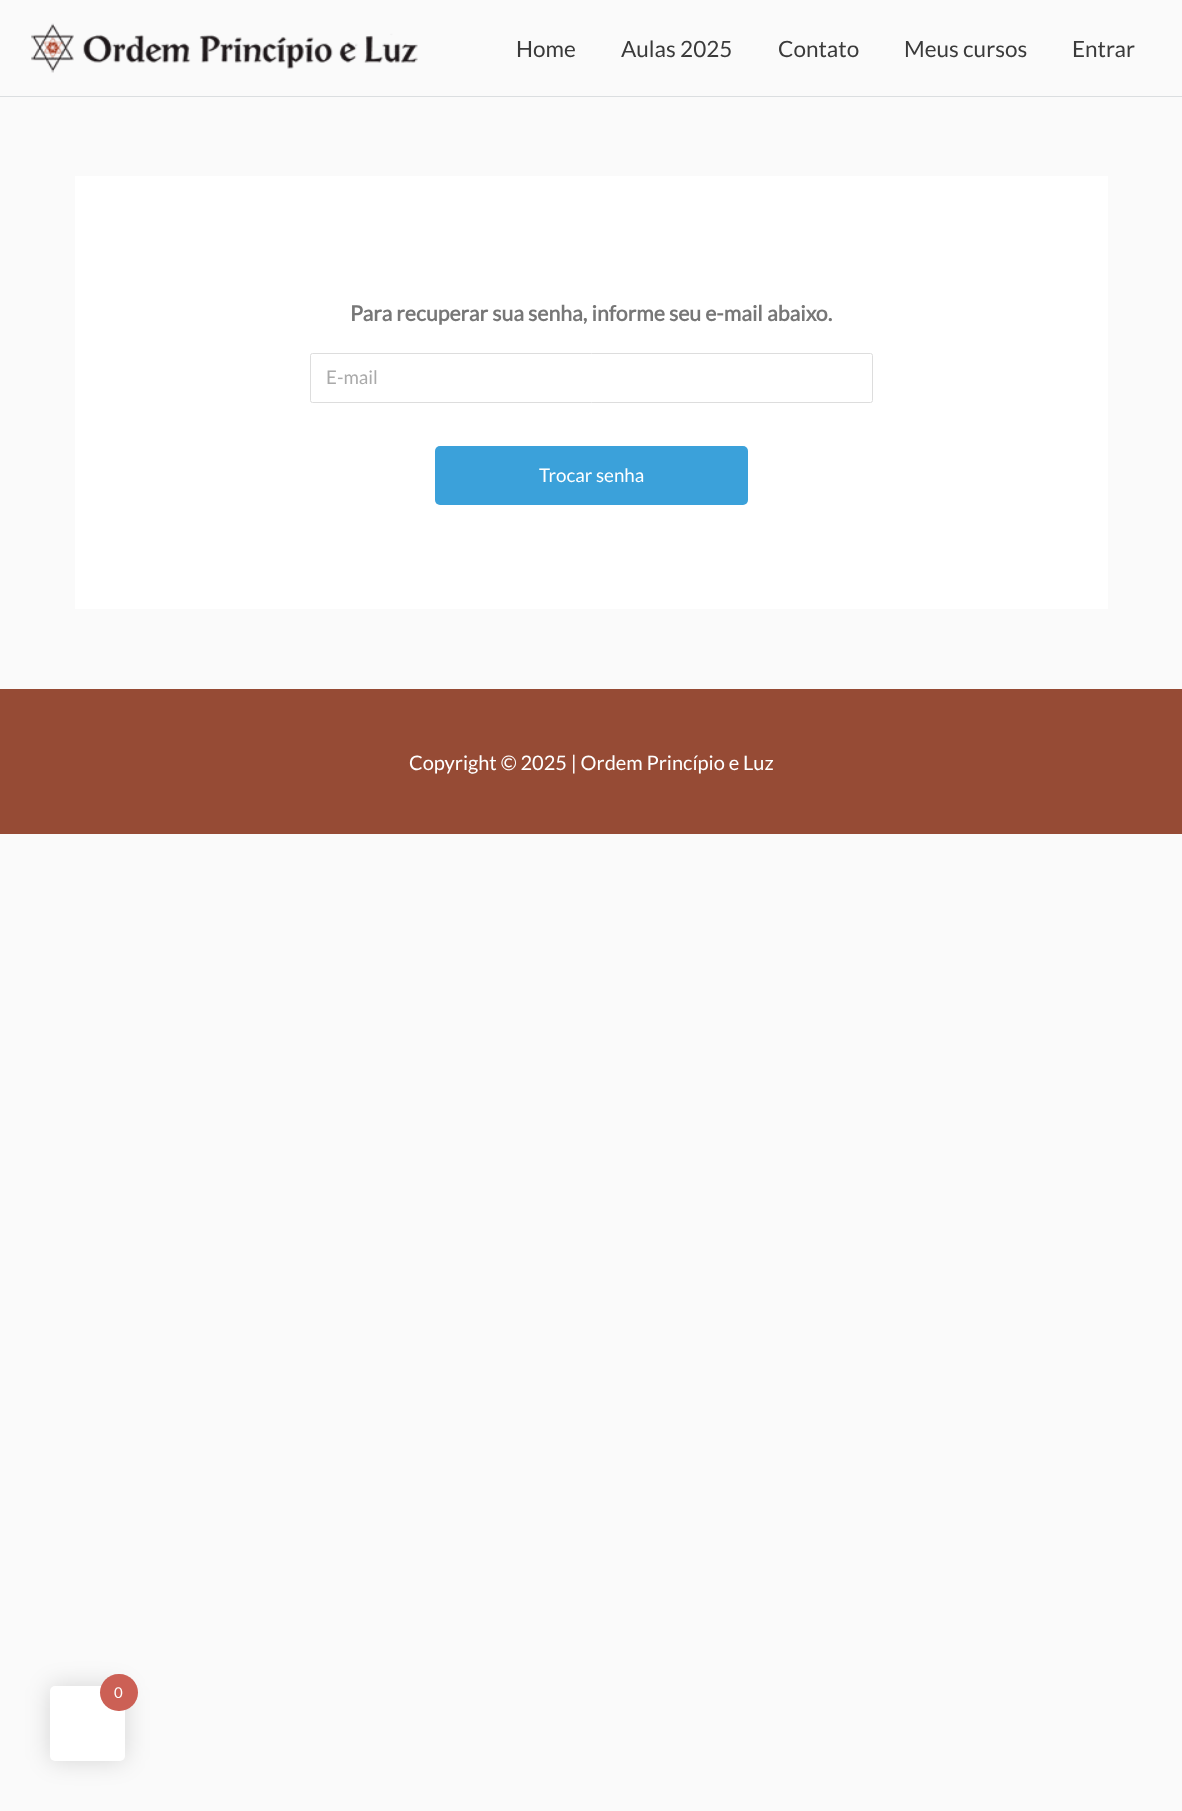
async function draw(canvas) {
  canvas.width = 1182
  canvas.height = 1811
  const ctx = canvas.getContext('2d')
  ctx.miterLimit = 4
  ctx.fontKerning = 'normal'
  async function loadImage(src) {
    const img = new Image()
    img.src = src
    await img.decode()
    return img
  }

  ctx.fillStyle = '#fafafa'
  ctx.fillRect(0, 0, 1182, 1811)
  ctx.fillStyle = '#dbdee0'
  ctx.fillRect(0, 96, 1182, 1)
  ctx.drawImage(await loadImage('image0.png'), 31, 23, 387, 50)
  ctx.font = '22.5px Lato'
  ctx.fillStyle = '#3a3a3a'
  ctx.fillText('Home', 516, 57)
  ctx.fillText('Aulas 2025', 621, 57)
  ctx.fillText('Contato', 778, 57)
  ctx.fillText('Meus cursos', 904, 57)
  ctx.fillText('Entrar', 1072, 57)
  ctx.fillStyle = '#fff'
  ctx.fillRect(75, 176, 1033, 433)
  ctx.font = 'bold 21.25px Lato'
  ctx.fillStyle = '#777'
  ctx.fillText('Para recuperar sua senha, informe seu e-mail abaixo.', 350, 321)
  ctx.beginPath()
  ctx.roundRect(310.5, 353.5, 562, 49, 2)
  ctx.strokeStyle = '#ddd'
  ctx.stroke()
  ctx.font = '18.75px Lato'
  ctx.fillStyle = '#aaa'
  ctx.fillText('E-mail', 326, 384)
  ctx.fillStyle = '#3ba1da'
  ctx.beginPath()
  ctx.roundRect(435, 446, 313, 59, 5)
  ctx.fill()
  ctx.fillStyle = '#fff'
  ctx.fillText('Trocar senha', 539, 482)
  ctx.fillStyle = '#964b35'
  ctx.fillRect(0, 689, 1182, 145)
  ctx.font = '20px Lato'
  ctx.fillStyle = '#fff'
  ctx.fillText('Copyright © 2025 | Ordem Princípio e Luz', 409, 770)
  ctx.fillStyle = '#00000026'
  ctx.filter = 'blur(12.5px)'
  ctx.beginPath()
  ctx.roundRect(50, 1686, 75, 75, 5)
  ctx.fill()
  ctx.filter = 'none'
  ctx.fillStyle = '#fff'
  ctx.beginPath()
  ctx.roundRect(50, 1686, 75, 75, 5)
  ctx.fill()
  ctx.fillStyle = '#cc6055'
  ctx.beginPath()
  ctx.roundRect(100, 1674, 38, 37, 18.5)
  ctx.fill()
  ctx.font = '15px Lato'
  ctx.fillStyle = '#fff'
  ctx.fillText('0', 114, 1698)
}

draw(document.querySelector('canvas'))
